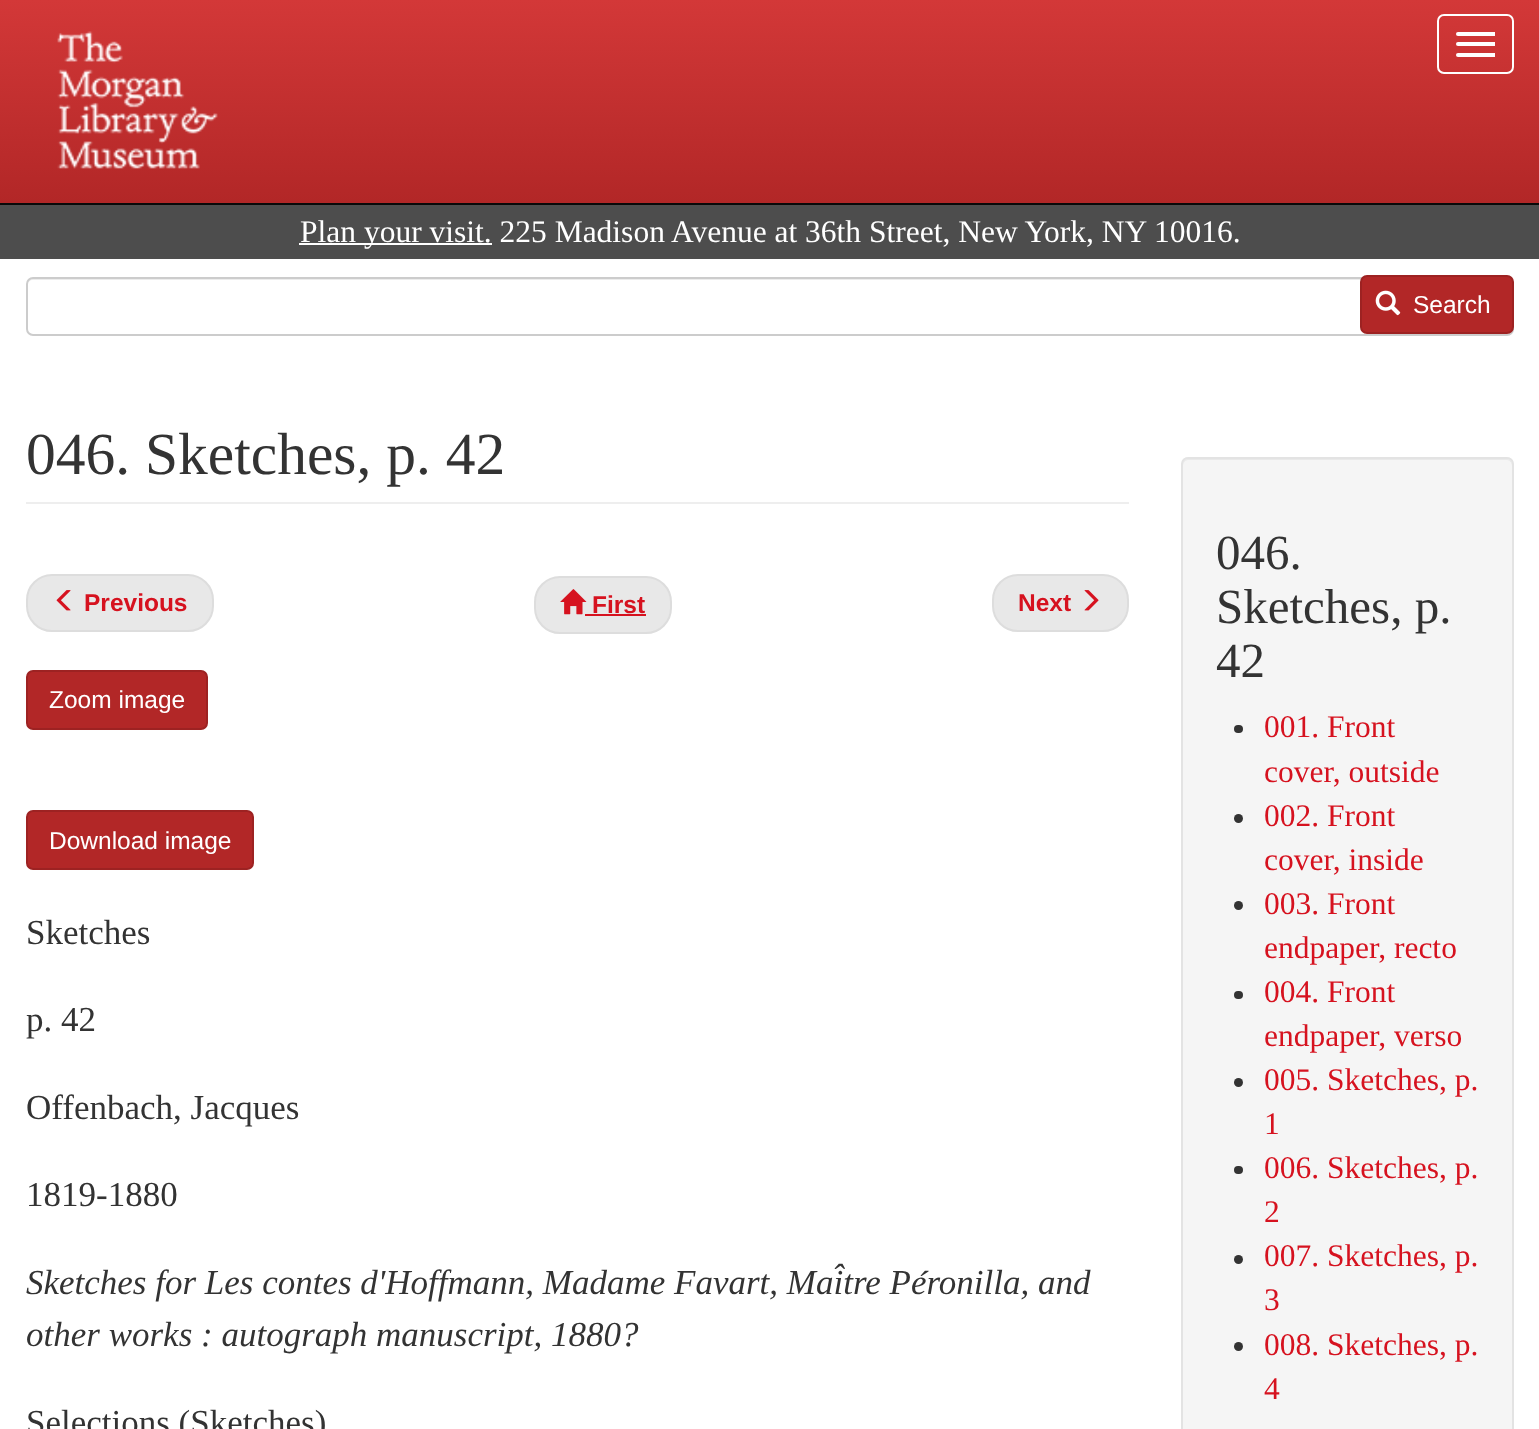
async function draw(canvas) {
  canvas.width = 1539
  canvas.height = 1429
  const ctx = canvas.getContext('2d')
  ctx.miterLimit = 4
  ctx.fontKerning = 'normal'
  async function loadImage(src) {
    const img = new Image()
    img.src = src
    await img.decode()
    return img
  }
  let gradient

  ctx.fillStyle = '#fff'
  ctx.fillRect(0, 0, 1539, 1429)
  gradient = ctx.createLinearGradient(770, 0, 770, 203)
  gradient.addColorStop(0, '#d33838')
  gradient.addColorStop(1, '#b22727')
  ctx.fillStyle = gradient
  ctx.fillRect(0, 0, 1539, 203)
  ctx.fillStyle = '#090909'
  ctx.fillRect(0, 203, 1539, 2)
  ctx.drawImage(await loadImage('image0.png'), 57, 31, 161, 138)
  ctx.beginPath()
  ctx.roundRect(1438, 15, 75, 58, 6)
  ctx.strokeStyle = '#fff'
  ctx.lineWidth = 2
  ctx.stroke()
  ctx.fillStyle = '#fff'
  ctx.beginPath()
  ctx.roundRect(1456, 32, 39, 4, 2)
  ctx.fill()
  ctx.fillRect(1493, 32, 2, 4)
  ctx.beginPath()
  ctx.roundRect(1456, 42, 39, 4, 2)
  ctx.fill()
  ctx.fillRect(1493, 42, 2, 4)
  ctx.beginPath()
  ctx.roundRect(1456, 53, 39, 4, 2)
  ctx.fill()
  ctx.fillRect(1493, 53, 2, 4)
  ctx.fillStyle = '#4d4d4d'
  ctx.fillRect(0, 205, 1539, 54)
  ctx.fillStyle = '#fff'
  ctx.fillRect(299, 243, 193, 2)
  ctx.font = '31.5px Liberation Serif'
  ctx.fillText('Plan your visit. 225 Madison Avenue at 36th Street, New York, NY 10016.', 300, 242)
  ctx.fillStyle = '#ececec'
  ctx.beginPath()
  ctx.moveTo(33, 280)
  ctx.lineTo(1507, 280)
  ctx.bezierCurveTo(1510, 280, 1512, 282, 1512, 285)
  ctx.bezierCurveTo(1512, 282, 1511, 278, 1507, 278)
  ctx.lineTo(33, 278)
  ctx.bezierCurveTo(29, 278, 28, 282, 28, 285)
  ctx.bezierCurveTo(28, 282, 30, 280, 33, 280)
  ctx.closePath()
  ctx.fill()
  ctx.beginPath()
  ctx.roundRect(27, 278, 1486, 57, 6)
  ctx.strokeStyle = '#ccc'
  ctx.stroke()
  ctx.fillStyle = '#b22727'
  ctx.beginPath()
  ctx.roundRect(1361, 276, 152, 57, 6)
  ctx.fill()
  ctx.strokeStyle = '#9d2222'
  ctx.stroke()
  ctx.drawImage(await loadImage('image1.png'), 1375, 290, 26, 26)
  ctx.font = '24.5px Liberation Sans'
  ctx.fillStyle = '#fff'
  ctx.fillText('Search', 1413, 313)
  ctx.fillStyle = '#eee'
  ctx.fillRect(26, 502, 1103, 2)
  ctx.font = '59.5px Liberation Serif'
  ctx.fillStyle = '#333'
  ctx.fillText('046. Sketches, p. 42', 26, 474)
  ctx.fillStyle = '#e8e8e8'
  ctx.beginPath()
  ctx.roundRect(27, 575, 186, 56, 25)
  ctx.fill()
  ctx.strokeStyle = '#ddd'
  ctx.stroke()
  ctx.drawImage(await loadImage('image2.png'), 56, 590, 15, 21)
  ctx.font = 'bold 24.5px Liberation Sans'
  ctx.fillStyle = '#d6121f'
  ctx.fillText('Previous', 84, 611)
  ctx.fillStyle = '#e8e8e8'
  ctx.beginPath()
  ctx.roundRect(535, 577, 136, 56, 25)
  ctx.fill()
  ctx.stroke()
  ctx.fillStyle = '#d6121f'
  ctx.fillRect(585, 614, 61, 2)
  ctx.drawImage(await loadImage('image3.png'), 560, 589, 27, 26)
  ctx.fillText('First', 592, 613)
  ctx.fillStyle = '#e8e8e8'
  ctx.beginPath()
  ctx.roundRect(993, 575, 135, 56, 25)
  ctx.fill()
  ctx.stroke()
  ctx.fillStyle = '#d6121f'
  ctx.fillText('Next', 1018, 611)
  ctx.drawImage(await loadImage('image4.png'), 1084, 590, 15, 21)
  ctx.fillStyle = '#b22727'
  ctx.beginPath()
  ctx.roundRect(27, 671, 180, 58, 6)
  ctx.fill()
  ctx.strokeStyle = '#9d2222'
  ctx.stroke()
  ctx.font = '24.5px Liberation Sans'
  ctx.fillStyle = '#fff'
  ctx.fillText('Zoom image', 49, 708)
  ctx.fillStyle = '#b22727'
  ctx.beginPath()
  ctx.roundRect(27, 811, 226, 58, 6)
  ctx.fill()
  ctx.stroke()
  ctx.fillStyle = '#fff'
  ctx.fillText('Download image', 49, 849)
  ctx.font = '35px Liberation Serif'
  ctx.fillStyle = '#333'
  ctx.fillText('Sketches', 26, 944)
  ctx.fillText('p. 42', 26, 1031)
  ctx.fillText('Offenbach, Jacques', 26, 1119)
  ctx.fillText('1819-1880', 26, 1206)
  ctx.font = 'italic 35px Liberation Serif'
  ctx.fillText('Sketches for Les contes d\'Hoffmann, Madame Favart, Maître Péronilla, and', 26, 1294)
  ctx.fillText('other works : autograph manuscript, 1880?', 26, 1346)
  ctx.font = '35px Liberation Serif'
  ctx.fillText('Selections (Sketches)', 26, 1434)
  ctx.fillStyle = '#f5f5f5'
  ctx.beginPath()
  ctx.roundRect(1181, 457, 333, 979, 7)
  ctx.fill()
  ctx.fillStyle = '#e9e9e9'
  ctx.beginPath()
  ctx.moveTo(1188, 460)
  ctx.lineTo(1507, 460)
  ctx.bezierCurveTo(1510, 460, 1512, 463, 1512, 466)
  ctx.lineTo(1512, 464)
  ctx.bezierCurveTo(1512, 461, 1510, 459, 1507, 459)
  ctx.lineTo(1188, 459)
  ctx.bezierCurveTo(1185, 459, 1183, 461, 1183, 464)
  ctx.lineTo(1183, 466)
  ctx.bezierCurveTo(1183, 463, 1185, 460, 1188, 460)
  ctx.closePath()
  ctx.fill()
  ctx.beginPath()
  ctx.roundRect(1182, 458, 331, 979, 6)
  ctx.strokeStyle = '#e3e3e3'
  ctx.stroke()
  ctx.font = '49px Liberation Serif'
  ctx.fillStyle = '#333'
  ctx.fillText('046.', 1216, 569)
  ctx.fillText('Sketches, p.', 1216, 623)
  ctx.fillText('42', 1216, 677)
  ctx.beginPath()
  ctx.roundRect(1234, 725, 9, 8, 4)
  ctx.fill()
  ctx.font = '31.5px Liberation Serif'
  ctx.fillStyle = '#d6121f'
  ctx.fillText('001. Front', 1264, 737)
  ctx.fillText('cover, outside', 1264, 782)
  ctx.fillStyle = '#333'
  ctx.beginPath()
  ctx.arc(1238.5, 818.5, 4.5, 0, 2 * Math.PI)
  ctx.fill()
  ctx.fillStyle = '#d6121f'
  ctx.fillText('002. Front', 1264, 826)
  ctx.fillText('cover, inside', 1264, 870)
  ctx.fillStyle = '#333'
  ctx.beginPath()
  ctx.arc(1238.5, 905.5, 4.5, 0, 2 * Math.PI)
  ctx.fill()
  ctx.fillStyle = '#d6121f'
  ctx.fillText('003. Front', 1264, 914)
  ctx.fillText('endpaper, recto', 1264, 958)
  ctx.fillStyle = '#333'
  ctx.beginPath()
  ctx.roundRect(1234, 991, 9, 8, 4)
  ctx.fill()
  ctx.fillStyle = '#d6121f'
  ctx.fillText('004. Front', 1264, 1002)
  ctx.fillText('endpaper, verso', 1264, 1046)
  ctx.fillStyle = '#333'
  ctx.beginPath()
  ctx.arc(1238.5, 1082.5, 4.5, 0, 2 * Math.PI)
  ctx.fill()
  ctx.fillStyle = '#d6121f'
  ctx.fillText('005. Sketches, p.', 1264, 1090)
  ctx.fillText('1', 1264, 1134)
  ctx.fillStyle = '#333'
  ctx.beginPath()
  ctx.roundRect(1234, 1166, 9, 8, 4)
  ctx.fill()
  ctx.fillStyle = '#d6121f'
  ctx.fillText('006. Sketches, p.', 1264, 1178)
  ctx.fillText('2', 1264, 1222)
  ctx.fillStyle = '#333'
  ctx.beginPath()
  ctx.arc(1238.5, 1259.5, 4.5, 0, 2 * Math.PI)
  ctx.fill()
  ctx.fillStyle = '#d6121f'
  ctx.fillText('007. Sketches, p.', 1264, 1266)
  ctx.fillText('3', 1264, 1310)
  ctx.fillStyle = '#333'
  ctx.beginPath()
  ctx.arc(1238.5, 1346.5, 4.5, 0, 2 * Math.PI)
  ctx.fill()
  ctx.fillStyle = '#d6121f'
  ctx.fillText('008. Sketches, p.', 1264, 1355)
  ctx.fillText('4', 1264, 1399)
}

draw(document.querySelector('canvas'))
